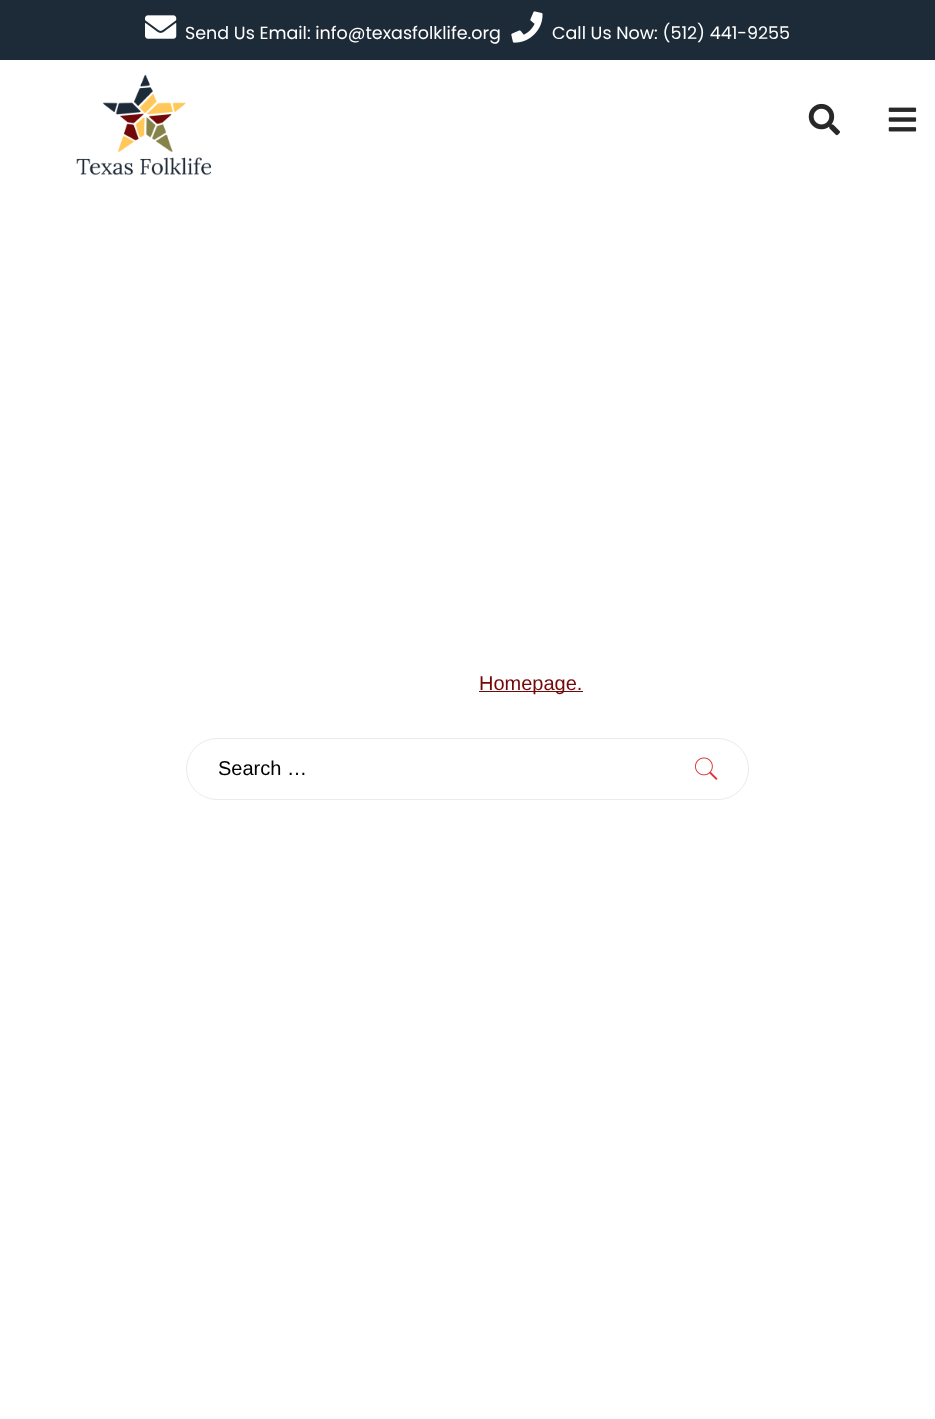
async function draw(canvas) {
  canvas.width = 935
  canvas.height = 1419
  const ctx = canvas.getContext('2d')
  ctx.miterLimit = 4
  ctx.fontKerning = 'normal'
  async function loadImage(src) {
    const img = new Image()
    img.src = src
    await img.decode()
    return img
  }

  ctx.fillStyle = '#fff'
  ctx.fillRect(0, 0, 935, 1419)
  ctx.fillStyle = '#1d2a38'
  ctx.fillRect(0, 0, 935, 60)
  ctx.drawImage(await loadImage('image0.png'), 145, 15, 32, 24)
  ctx.font = '17.5px Poppins'
  ctx.fillStyle = '#fff'
  ctx.fillText('Send Us Email: info@texasfolklife.org', 185, 39)
  ctx.drawImage(await loadImage('image1.png'), 511, 11, 32, 32)
  ctx.fillText('Call Us Now: (512) 441-9255', 552, 39)
  ctx.drawImage(await loadImage('image2.png'), 76, 74, 135, 102)
  ctx.drawImage(await loadImage('image3.png'), 808, 103, 32, 33)
  ctx.drawImage(await loadImage('image4.png'), 888, 107, 29, 25)
  ctx.fillStyle = '#730808'
  ctx.fillRect(479, 691, 104, 1)
  ctx.font = '20px Arimo'
  ctx.fillText('Homepage.', 479, 690)
  ctx.beginPath()
  ctx.roundRect(186.5, 738.5, 562, 61, 30.5)
  ctx.strokeStyle = '#ebebeb'
  ctx.stroke()
  ctx.fillStyle = '#000'
  ctx.fillText('Search …', 218, 775)
  ctx.drawImage(await loadImage('image5.png'), 695, 757, 23, 23)
}

draw(document.querySelector('canvas'))
